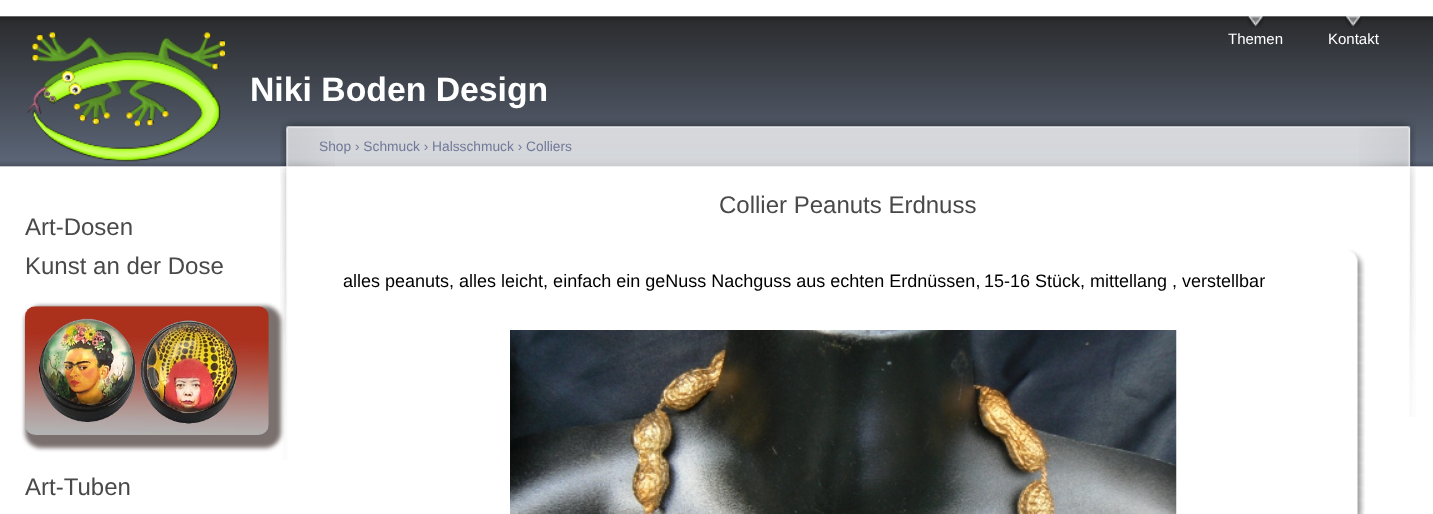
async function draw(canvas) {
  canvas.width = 1433
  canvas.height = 514
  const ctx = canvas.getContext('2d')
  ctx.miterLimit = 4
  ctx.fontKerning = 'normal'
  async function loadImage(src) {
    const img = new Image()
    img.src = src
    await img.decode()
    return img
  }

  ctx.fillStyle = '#fff'
  ctx.fillRect(0, 0, 1433, 514)
  ctx.drawImage(await loadImage('image0.png'), 0, 16, 1433, 151)
  ctx.drawImage(await loadImage('image1.png'), 1247, 16, 17, 12)
  ctx.font = '15px Liberation Sans'
  ctx.fillText('Themen', 1228, 44)
  ctx.drawImage(await loadImage('image2.png'), 1345, 16, 17, 12)
  ctx.fillText('Kontakt', 1328, 44)
  ctx.drawImage(await loadImage('image3.png'), 27, 32, 198, 130)
  ctx.font = 'bold 33.75px Liberation Sans'
  ctx.fillText('Niki Boden Design', 250, 101)
  ctx.font = '24px Liberation Sans'
  ctx.fillStyle = '#494949'
  ctx.fillText('Art-Dosen', 25, 235)
  ctx.fillText('Kunst an der Dose', 25, 274)
  ctx.drawImage(await loadImage('image5.png'), 287, 115, 1072, 52)
  ctx.drawImage(await loadImage('image7.png'), 280, 122, 55, 338)
  ctx.fillStyle = '#7a716f'
  ctx.filter = 'blur(2px)'
  ctx.beginPath()
  ctx.roundRect(25, 306, 256, 142, 16)
  ctx.fill()
  ctx.filter = 'none'
  ctx.drawImage(await loadImage('image4.png'), 25, 306, 244, 129)
  ctx.fillStyle = '#494949'
  ctx.fillText('Art-Tuben', 25, 495)
  ctx.drawImage(await loadImage('image6.png'), 1359, 115, 57, 302)
  ctx.font = '13.75px Liberation Sans'
  ctx.fillStyle = '#717999'
  ctx.fillText('Shop › Schmuck › Halsschmuck › Colliers', 319, 151)
  ctx.font = '24px Liberation Sans'
  ctx.fillStyle = '#494949'
  ctx.fillText('Collier Peanuts Erdnuss', 719, 213)
  ctx.drawImage(await loadImage('image8.png'), 1349, 250, 16, 24)
  ctx.drawImage(await loadImage('image9.png'), 1357, 273, 8, 241)
  ctx.font = '18px Liberation Sans'
  ctx.fillStyle = '#000'
  ctx.fillText('alles peanuts, alles leicht, einfach ein geNuss Nachguss aus echten Erdnüssen,', 343, 287)
  ctx.fillText('15-16 Stück, mittellang , verstellbar', 984, 287)
  ctx.drawImage(await loadImage('image10.png'), 510, 330, 667, 184)
}

draw(document.querySelector('canvas'))
